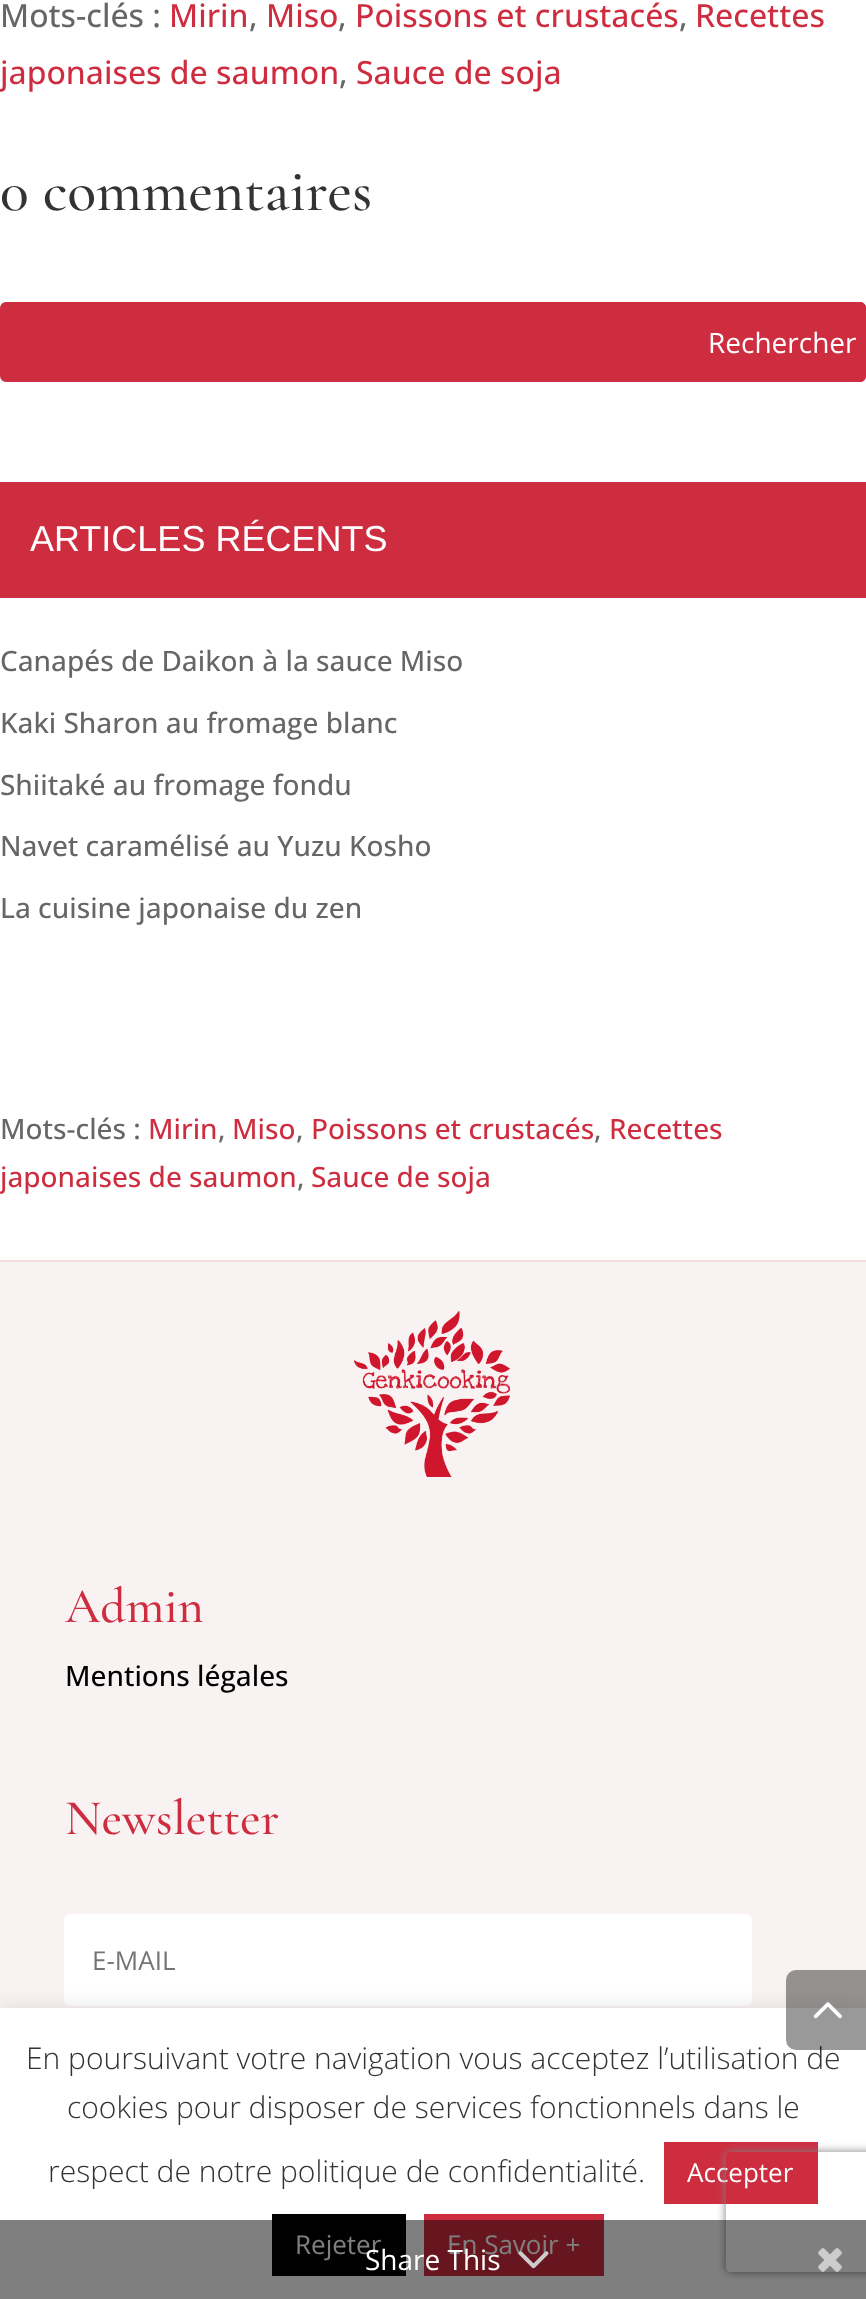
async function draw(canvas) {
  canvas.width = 866
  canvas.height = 2299
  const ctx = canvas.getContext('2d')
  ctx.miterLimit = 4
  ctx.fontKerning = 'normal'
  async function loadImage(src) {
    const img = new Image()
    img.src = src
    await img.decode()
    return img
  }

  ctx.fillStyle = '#fff'
  ctx.fillRect(0, 0, 866, 2299)
  ctx.font = '500 32px Open Sans'
  ctx.fillStyle = '#666'
  ctx.fillText('Mots-clés :', 0, 27)
  ctx.fillStyle = '#ce2d40'
  ctx.fillText('Mirin', 169, 27)
  ctx.fillStyle = '#666'
  ctx.fillText(',', 249, 27)
  ctx.fillStyle = '#ce2d40'
  ctx.fillText('Miso', 266, 27)
  ctx.fillStyle = '#666'
  ctx.fillText(',', 338, 27)
  ctx.fillStyle = '#ce2d40'
  ctx.fillText('Poissons et crustacés', 355, 27)
  ctx.fillStyle = '#666'
  ctx.fillText(',', 679, 27)
  ctx.fillStyle = '#ce2d40'
  ctx.fillText('Recettes', 695, 27)
  ctx.fillText('japonaises de saumon', 0, 84)
  ctx.fillStyle = '#666'
  ctx.fillText(',', 339, 84)
  ctx.fillStyle = '#ce2d40'
  ctx.fillText('Sauce de soja', 356, 84)
  ctx.font = '300 60px Cormorant Garamond'
  ctx.fillStyle = '#333'
  ctx.fillText('0 commentaires', 0, 210)
  ctx.fillStyle = '#ce2d40'
  ctx.beginPath()
  ctx.roundRect(1, 303, 864, 78, 5)
  ctx.fill()
  ctx.strokeStyle = '#ce2d40'
  ctx.lineWidth = 2
  ctx.stroke()
  ctx.beginPath()
  ctx.roundRect(687, 303, 178, 78, [0, 5, 5, 0])
  ctx.fill()
  ctx.stroke()
  ctx.font = '28px Open Sans'
  ctx.fillStyle = '#fff'
  ctx.fillText('Rechercher', 708, 353)
  ctx.fillStyle = '#ce2d40'
  ctx.fillRect(0, 482, 866, 116)
  ctx.font = '36px Liberation Sans'
  ctx.fillStyle = '#fff'
  ctx.fillText('ARTICLES RÉCENTS', 30, 551)
  ctx.font = '500 28px Open Sans'
  ctx.fillStyle = '#666'
  ctx.fillText('Canapés de Daikon à la sauce Miso', 0, 671)
  ctx.fillText('Kaki Sharon au fromage blanc', 0, 733)
  ctx.fillText('Shiitaké au fromage fondu', 0, 795)
  ctx.fillText('Navet caramélisé au Yuzu Kosho', 0, 856)
  ctx.fillText('La cuisine japonaise du zen', 0, 918)
  ctx.fillText('Mots-clés :', 0, 1139)
  ctx.fillStyle = '#ce2d40'
  ctx.fillText('Mirin', 148, 1139)
  ctx.fillStyle = '#666'
  ctx.fillText(',', 218, 1139)
  ctx.fillStyle = '#ce2d40'
  ctx.fillText('Miso', 232, 1139)
  ctx.fillStyle = '#666'
  ctx.fillText(',', 296, 1139)
  ctx.fillStyle = '#ce2d40'
  ctx.fillText('Poissons et crustacés', 311, 1139)
  ctx.fillStyle = '#666'
  ctx.fillText(',', 594, 1139)
  ctx.fillStyle = '#ce2d40'
  ctx.fillText('Recettes', 609, 1139)
  ctx.fillText('japonaises de saumon', 0, 1187)
  ctx.fillStyle = '#666'
  ctx.fillText(',', 297, 1187)
  ctx.fillStyle = '#ce2d40'
  ctx.fillText('Sauce de soja', 311, 1187)
  ctx.fillStyle = '#f9f2f2'
  ctx.fillRect(0, 1262, 866, 746)
  ctx.fillStyle = '#f5dee0'
  ctx.fillRect(0, 1260, 866, 2)
  ctx.drawImage(await loadImage('image0.png'), 354, 1311, 156, 166)
  ctx.font = '300 50px Cormorant Garamond'
  ctx.fillStyle = '#ce2d40'
  ctx.fillText('Admin', 65, 1622)
  ctx.font = '500 28px Open Sans'
  ctx.fillStyle = '#000'
  ctx.fillText('Mentions légales', 65, 1686)
  ctx.font = '300 50px Cormorant Garamond'
  ctx.fillStyle = '#ce2d40'
  ctx.fillText('Newsletter', 65, 1834)
  ctx.fillStyle = '#fff'
  ctx.beginPath()
  ctx.roundRect(64, 1914, 688, 92, 6)
  ctx.fill()
  ctx.font = '26px Open Sans'
  ctx.fillStyle = '#757575'
  ctx.fillText('E-MAIL', 92, 1970)
  ctx.fillStyle = '#acabab4d'
  ctx.filter = 'blur(10px)'
  ctx.beginPath()
  ctx.rect(0, 2006, 866, 292)
  ctx.fill()
  ctx.filter = 'none'
  ctx.fillStyle = '#fff'
  ctx.fillRect(0, 2008, 866, 291)
  ctx.font = '300 30px Open Sans'
  ctx.fillStyle = '#333'
  ctx.fillText('En poursuivant votre navigation vous acceptez l’utilisation de', 26, 2069)
  ctx.fillStyle = '#00000066'
  ctx.beginPath()
  ctx.roundRect(786, 1970, 80, 80, [10, 0, 0, 10])
  ctx.fill()
  ctx.drawImage(await loadImage('image1.png'), 813, 2002, 29, 17)
  ctx.fillStyle = '#333'
  ctx.fillText('cookies pour disposer de services fonctionnels dans le', 67, 2118)
  ctx.fillText('respect de notre politique de confidentialité.', 48, 2182)
  ctx.fillStyle = '#ce2d40'
  ctx.fillRect(664, 2142, 154, 62)
  ctx.font = '26px Open Sans'
  ctx.fillStyle = '#fff'
  ctx.fillText('Accepter', 687, 2182)
  ctx.fillStyle = '#000'
  ctx.fillRect(272, 2214, 134, 62)
  ctx.fillStyle = '#fff'
  ctx.fillText('Rejeter', 295, 2254)
  ctx.fillStyle = '#ce2d40'
  ctx.fillRect(424, 2214, 180, 62)
  ctx.fillStyle = '#fff'
  ctx.fillText('En Savoir +', 447, 2254)
  ctx.save()
  ctx.beginPath()
  ctx.moveTo(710, 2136)
  ctx.lineTo(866, 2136)
  ctx.lineTo(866, 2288)
  ctx.lineTo(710, 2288)
  ctx.closePath()
  ctx.moveTo(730, 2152)
  ctx.lineTo(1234, 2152)
  ctx.bezierCurveTo(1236, 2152, 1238, 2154, 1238, 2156)
  ctx.lineTo(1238, 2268)
  ctx.bezierCurveTo(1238, 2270, 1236, 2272, 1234, 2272)
  ctx.lineTo(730, 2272)
  ctx.bezierCurveTo(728, 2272, 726, 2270, 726, 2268)
  ctx.lineTo(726, 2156)
  ctx.bezierCurveTo(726, 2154, 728, 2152, 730, 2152)
  ctx.closePath()
  ctx.clip('evenodd')
  ctx.fillStyle = '#808080'
  ctx.filter = 'blur(5px)'
  ctx.beginPath()
  ctx.roundRect(726, 2152, 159, 120, 4)
  ctx.fill()
  ctx.filter = 'none'
  ctx.restore()
  ctx.fillStyle = '#00000080'
  ctx.fillRect(0, 2220, 866, 79)
  ctx.font = '28px Open Sans'
  ctx.fillStyle = '#fff'
  ctx.fillText('Share This', 365, 2270)
  ctx.drawImage(await loadImage('image2.png'), 518, 2251, 31, 18)
  ctx.drawImage(await loadImage('image3.png'), 818, 2248, 24, 24)
}

draw(document.querySelector('canvas'))
